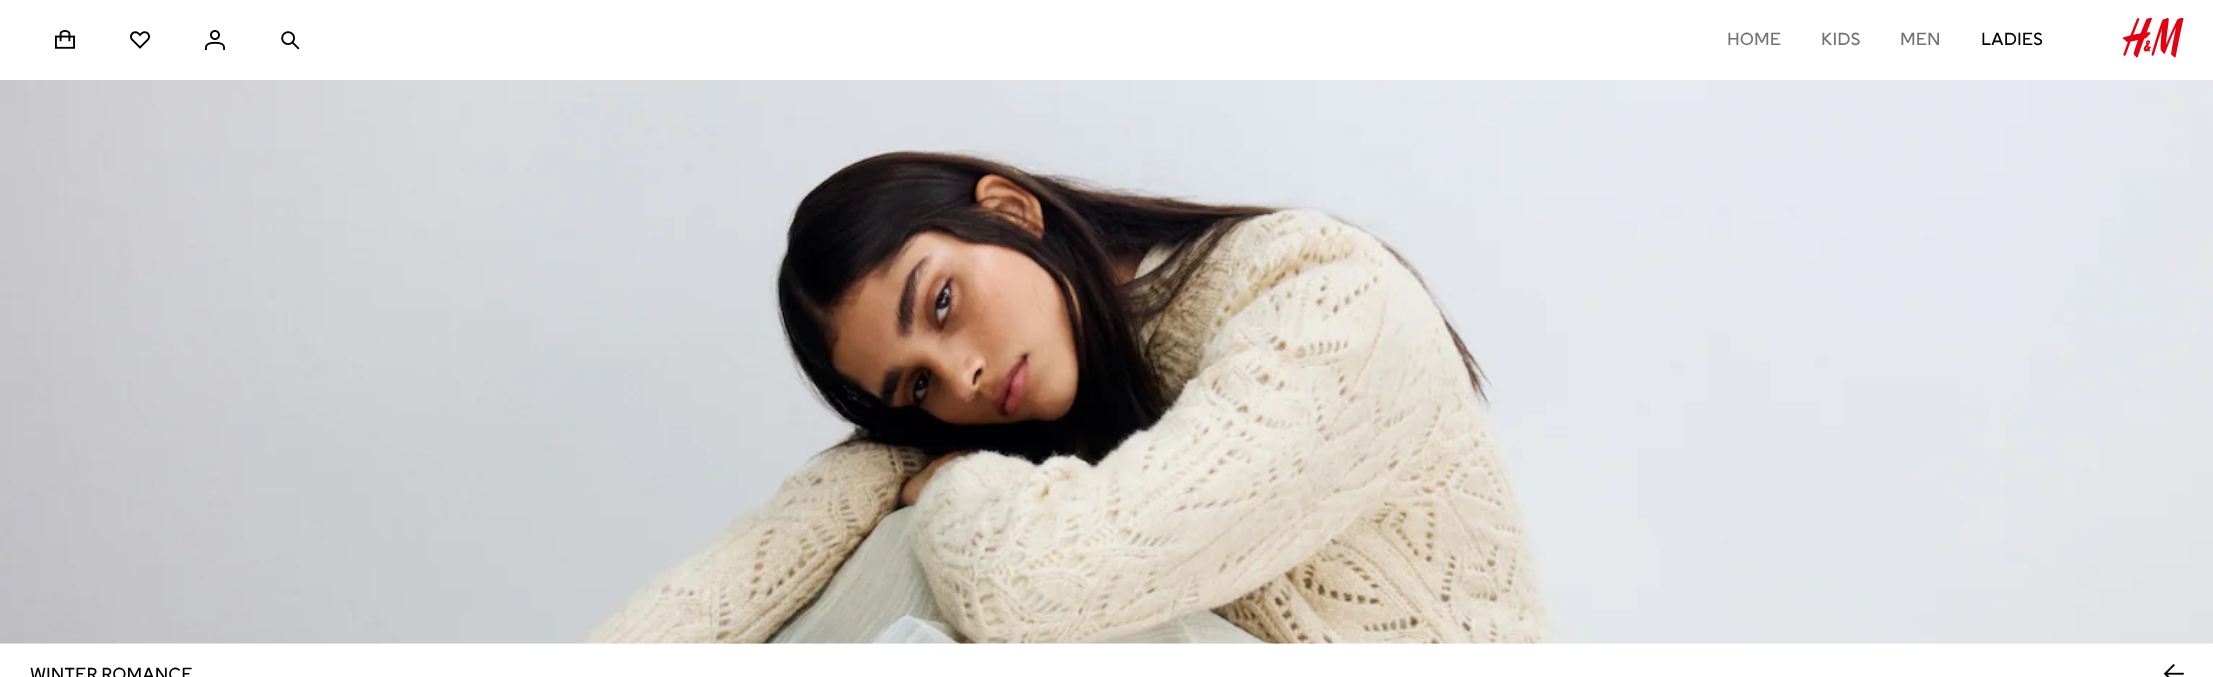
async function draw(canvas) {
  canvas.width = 2213
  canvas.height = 677
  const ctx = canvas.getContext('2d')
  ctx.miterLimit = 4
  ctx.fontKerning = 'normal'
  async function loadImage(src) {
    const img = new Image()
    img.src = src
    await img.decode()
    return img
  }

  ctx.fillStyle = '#fff'
  ctx.fillRect(0, 0, 2213, 677)
  ctx.drawImage(await loadImage('image0.png'), 55, 30, 20, 19)
  ctx.drawImage(await loadImage('image1.png'), 130, 31, 20, 18)
  ctx.drawImage(await loadImage('image2.png'), 205, 30, 20, 20)
  ctx.drawImage(await loadImage('image3.png'), 281, 31, 19, 19)
  ctx.font = '17.5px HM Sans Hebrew'
  ctx.fillStyle = '#737373'
  ctx.fillText('HOME', 1727, 45)
  ctx.fillText('KIDS', 1821, 45)
  ctx.fillText('MEN', 1900, 45)
  ctx.fillStyle = '#000'
  ctx.fillText('LADIES', 1981, 45)
  ctx.drawImage(await loadImage('image4.png'), 2123, 18, 61, 40)
  ctx.drawImage(await loadImage('image5.png'), 0, 80, 2213, 564)
  ctx.fillText('WINTER ROMANCE', 30, 680)
  ctx.drawImage(await loadImage('image6.png'), 2163, 664, 21, 13)
}

draw(document.querySelector('canvas'))
